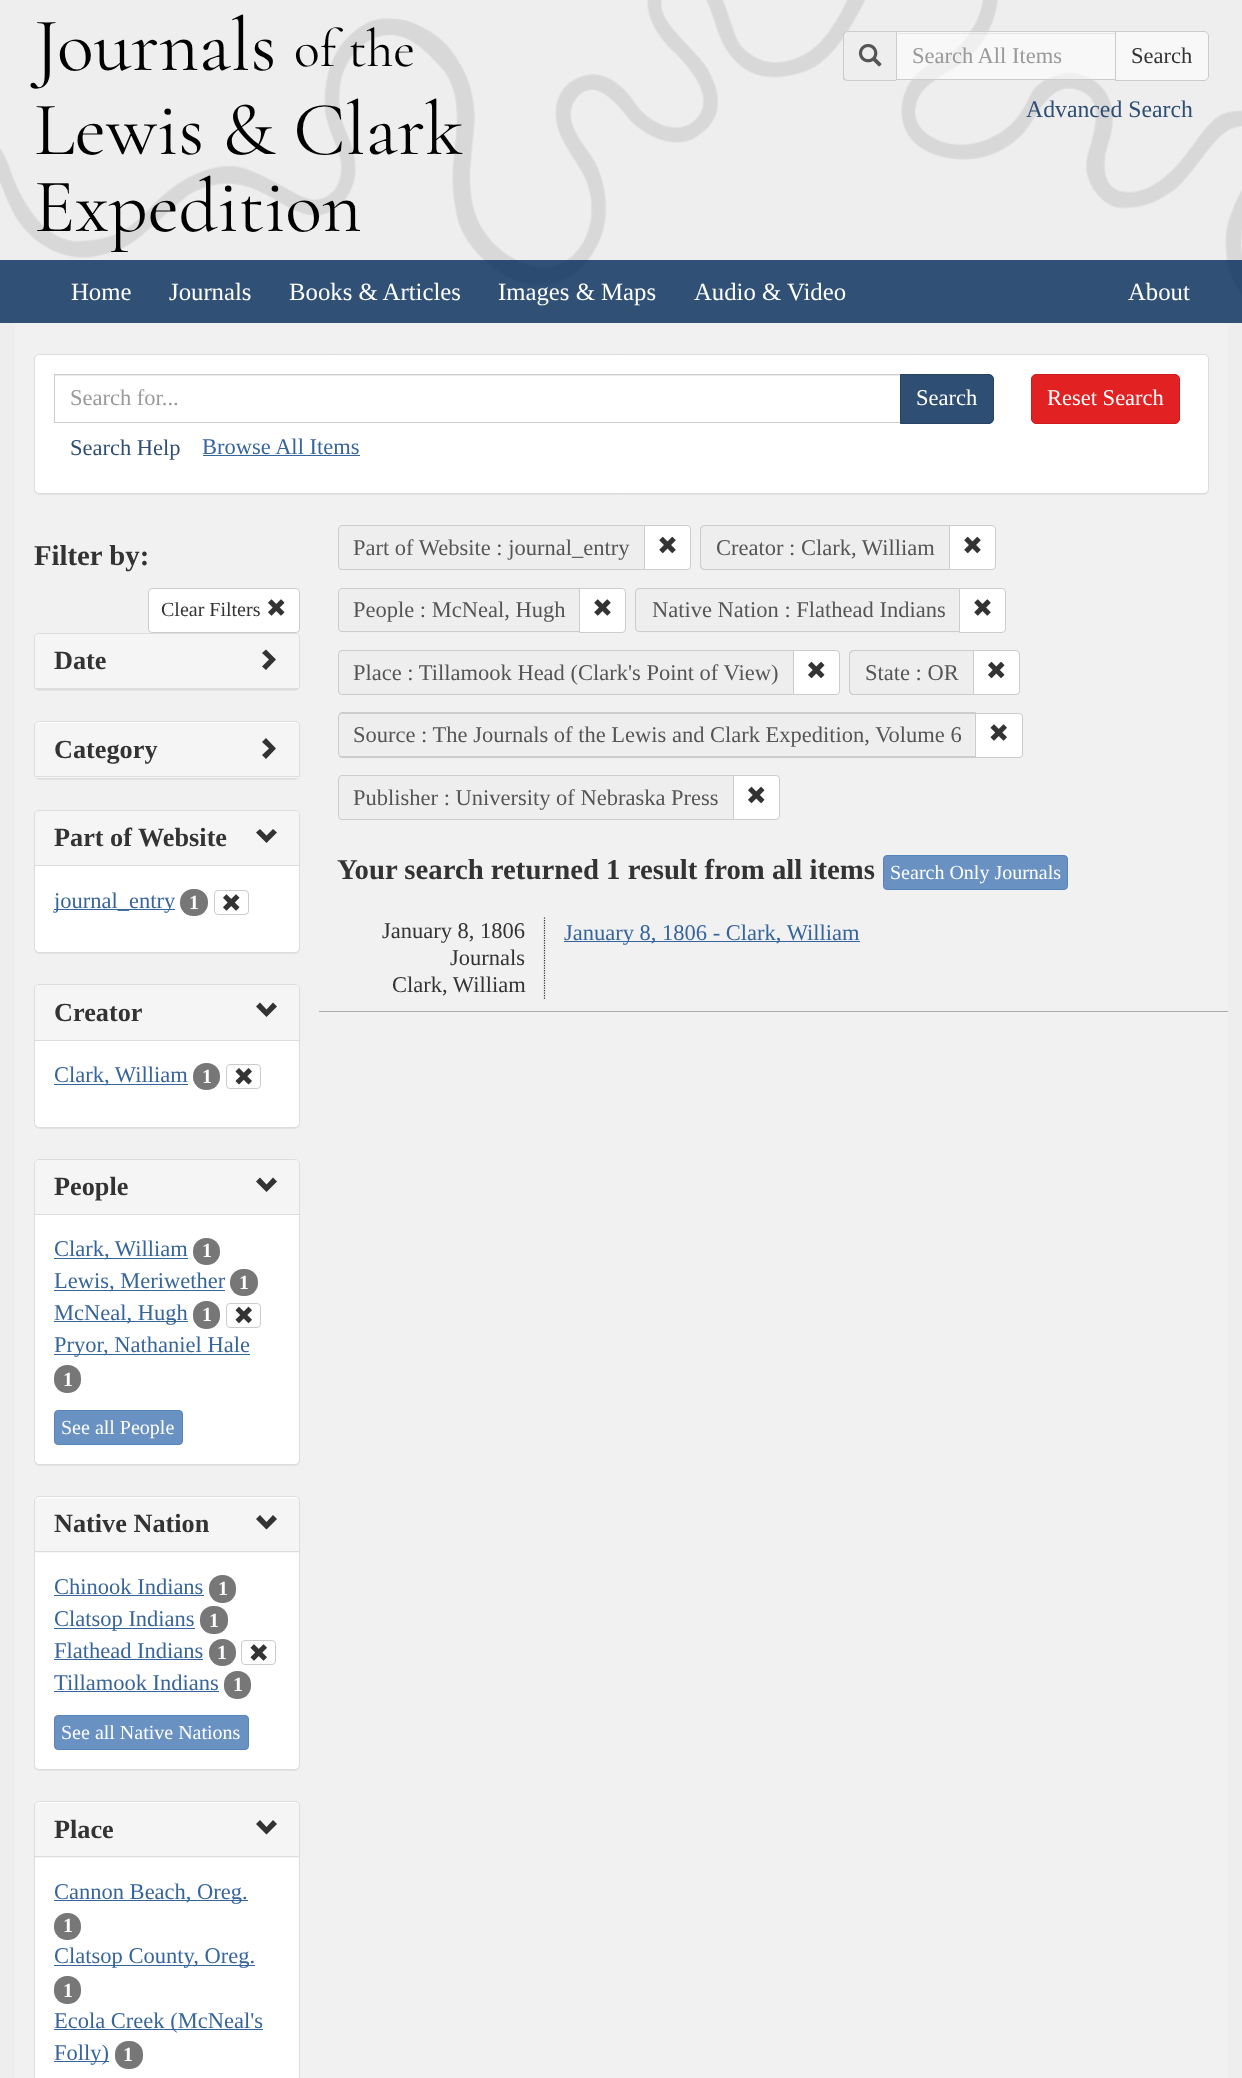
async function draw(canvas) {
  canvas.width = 1242
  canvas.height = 2078
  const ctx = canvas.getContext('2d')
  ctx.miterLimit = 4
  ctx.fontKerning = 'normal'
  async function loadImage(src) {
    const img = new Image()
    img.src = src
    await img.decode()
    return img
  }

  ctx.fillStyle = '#eee'
  ctx.fillRect(0, 0, 1242, 2078)
  ctx.drawImage(await loadImage('image0.png'), 0, 0, 1242, 296)
  ctx.font = '300 76.5px Cormorant Garamond'
  ctx.fillStyle = '#000'
  ctx.fillText('J', 34, 70)
  ctx.fillText('ournals', 57, 70)
  ctx.font = '300 53.5px Cormorant Garamond'
  ctx.fillText('of the', 294, 66)
  ctx.font = '300 76.5px Cormorant Garamond'
  ctx.fillText('Lewis & Clark', 34, 154)
  ctx.fillText('Expedition', 34, 231)
  ctx.fillStyle = '#eee'
  ctx.beginPath()
  ctx.roundRect(843, 31, 53, 50, [5, 0, 0, 5])
  ctx.fill()
  ctx.save()
  ctx.beginPath()
  ctx.rect(843, 31, 366, 107)
  ctx.clip()
  ctx.fillStyle = '#ccc'
  ctx.beginPath()
  ctx.moveTo(848, 31)
  ctx.lineTo(896, 31)
  ctx.lineTo(896, 81)
  ctx.lineTo(848, 81)
  ctx.bezierCurveTo(845, 81, 842, 79, 842, 76)
  ctx.lineTo(842, 36)
  ctx.bezierCurveTo(842, 33, 845, 31, 848, 31)
  ctx.closePath()
  ctx.moveTo(848, 32)
  ctx.lineTo(896, 32)
  ctx.lineTo(896, 80)
  ctx.lineTo(848, 80)
  ctx.bezierCurveTo(845, 80, 844, 78, 844, 76)
  ctx.lineTo(844, 36)
  ctx.bezierCurveTo(844, 34, 845, 32, 848, 32)
  ctx.closePath()
  ctx.fill('evenodd')
  ctx.restore()
  ctx.drawImage(await loadImage('image1.png'), 858, 43, 24, 24)
  ctx.fillStyle = '#ffffff99'
  ctx.fillRect(897, 32, 218, 47)
  ctx.fillStyle = '#00000012'
  ctx.fillRect(898, 33, 217, 1)
  ctx.strokeStyle = '#ccc'
  ctx.strokeRect(896.5, 31.5, 219, 48)
  ctx.font = '22.5px Liberation Serif'
  ctx.fillStyle = '#999'
  ctx.fillText('Search All Items', 912, 63)
  ctx.fillStyle = '#ffffff99'
  ctx.beginPath()
  ctx.roundRect(1115.5, 31.5, 93, 49, [0, 4.5, 4.5, 0])
  ctx.fill()
  ctx.stroke()
  ctx.fillStyle = '#333'
  ctx.fillText('Search', 1131, 63)
  ctx.font = '23.75px Liberation Serif'
  ctx.fillStyle = '#2e4e74'
  ctx.fillText('Advanced Search', 1026, 117)
  ctx.fillStyle = '#f1f1f1'
  ctx.fillRect(15, 320, 1213, 1758)
  ctx.fillStyle = '#002956cc'
  ctx.fillRect(0, 260, 1242, 63)
  ctx.font = '24.75px Liberation Serif'
  ctx.fillStyle = '#fff'
  ctx.fillText('Home', 71, 300)
  ctx.fillText('Journals', 169, 300)
  ctx.fillText('Books & Articles', 289, 300)
  ctx.fillText('Images & Maps', 498, 300)
  ctx.fillText('Audio & Video', 694, 300)
  ctx.fillText('About', 1128, 300)
  ctx.fillStyle = '#0000000d'
  ctx.filter = 'blur(0.5px)'
  ctx.beginPath()
  ctx.roundRect(34, 355, 1175, 140, 5)
  ctx.fill()
  ctx.filter = 'none'
  ctx.fillStyle = '#fff'
  ctx.beginPath()
  ctx.roundRect(34.5, 354.5, 1174, 139, 4.5)
  ctx.fill()
  ctx.strokeStyle = '#ddd'
  ctx.stroke()
  ctx.fillStyle = '#ececec'
  ctx.fillRect(55, 375, 845, 1)
  ctx.strokeStyle = '#ccc'
  ctx.strokeRect(54.5, 374.5, 846, 48)
  ctx.font = '22.5px Liberation Serif'
  ctx.fillStyle = '#999'
  ctx.fillText('Search for...', 70, 405)
  ctx.fillStyle = '#2e4e74'
  ctx.beginPath()
  ctx.roundRect(900.5, 374.5, 93, 49, [0, 4.5, 4.5, 0])
  ctx.fill()
  ctx.strokeStyle = '#274262'
  ctx.stroke()
  ctx.fillStyle = '#fff'
  ctx.fillText('Search', 916, 405)
  ctx.fillStyle = '#2e4e74'
  ctx.fillText('Search Help', 70, 455)
  ctx.fillStyle = '#36659c'
  ctx.fillText('Browse All Items', 202, 454)
  ctx.fillRect(203, 455, 157, 1)
  ctx.fillStyle = '#e12122'
  ctx.beginPath()
  ctx.roundRect(1031.5, 374.5, 148, 49, 4.5)
  ctx.fill()
  ctx.strokeStyle = '#cd1c1d'
  ctx.stroke()
  ctx.fillStyle = '#fff'
  ctx.fillText('Reset Search', 1047, 405)
  ctx.font = 'bold 28.75px Liberation Serif'
  ctx.fillStyle = '#333'
  ctx.fillText('Filter by:', 34, 565)
  ctx.fillStyle = '#0000000d'
  ctx.filter = 'blur(0.5px)'
  ctx.beginPath()
  ctx.roundRect(34, 634, 266, 57, 5)
  ctx.fill()
  ctx.filter = 'none'
  ctx.fillStyle = '#fff'
  ctx.beginPath()
  ctx.roundRect(148.5, 588.5, 151, 44, 3.5)
  ctx.fill()
  ctx.strokeStyle = '#ccc'
  ctx.stroke()
  ctx.font = '20px Liberation Serif'
  ctx.fillStyle = '#333'
  ctx.fillText('Clear Filters', 161, 616)
  ctx.drawImage(await loadImage('image2.png'), 268, 599, 17, 17)
  ctx.beginPath()
  ctx.roundRect(34.5, 633.5, 265, 56, 4.5)
  ctx.strokeStyle = '#ddd'
  ctx.stroke()
  ctx.fillStyle = '#f5f5f5'
  ctx.beginPath()
  ctx.roundRect(35, 634, 264, 55, [4, 4, 0, 0])
  ctx.fill()
  ctx.fillStyle = '#ddd'
  ctx.fillRect(35, 688, 264, 1)
  ctx.font = 'bold 26.25px Liberation Serif'
  ctx.fillStyle = '#333'
  ctx.fillText('Date', 54, 669)
  ctx.beginPath()
  ctx.moveTo(276, 659.5)
  ctx.lineTo(266, 670)
  ctx.lineTo(262, 666.5)
  ctx.lineTo(269, 659.5)
  ctx.lineTo(262, 653)
  ctx.lineTo(266, 649.5)
  ctx.closePath()
  ctx.fill()
  ctx.fillStyle = '#0000000d'
  ctx.filter = 'blur(0.5px)'
  ctx.beginPath()
  ctx.roundRect(34, 723, 266, 57, 5)
  ctx.fill()
  ctx.filter = 'none'
  ctx.fillStyle = '#fff'
  ctx.beginPath()
  ctx.roundRect(34.5, 721.5, 265, 57, 4.5)
  ctx.fill()
  ctx.stroke()
  ctx.fillStyle = '#f5f5f5'
  ctx.beginPath()
  ctx.roundRect(35, 723, 264, 55, [4, 4, 0, 0])
  ctx.fill()
  ctx.fillStyle = '#ddd'
  ctx.fillRect(35, 776, 264, 1)
  ctx.fillStyle = '#333'
  ctx.fillText('Category', 54, 758)
  ctx.beginPath()
  ctx.moveTo(276, 748.5)
  ctx.lineTo(266, 759)
  ctx.lineTo(262, 755)
  ctx.lineTo(269, 748.5)
  ctx.lineTo(262, 742)
  ctx.lineTo(266, 738)
  ctx.closePath()
  ctx.fill()
  ctx.fillStyle = '#0000000d'
  ctx.filter = 'blur(0.5px)'
  ctx.beginPath()
  ctx.roundRect(34, 811, 266, 143, 5)
  ctx.fill()
  ctx.filter = 'none'
  ctx.fillStyle = '#fff'
  ctx.beginPath()
  ctx.roundRect(34.5, 810.5, 265, 142, 4.5)
  ctx.fill()
  ctx.stroke()
  ctx.fillStyle = '#f5f5f5'
  ctx.beginPath()
  ctx.roundRect(35, 811, 264, 55, [4, 4, 0, 0])
  ctx.fill()
  ctx.fillStyle = '#ddd'
  ctx.fillRect(35, 865, 264, 1)
  ctx.fillStyle = '#333'
  ctx.fillText('Part of Website', 54, 846)
  ctx.beginPath()
  ctx.moveTo(277, 832.5)
  ctx.lineTo(266.5, 843)
  ctx.lineTo(256, 832.5)
  ctx.lineTo(260, 829)
  ctx.lineTo(266.5, 835.5)
  ctx.lineTo(273, 829)
  ctx.closePath()
  ctx.fill()
  ctx.fillStyle = '#36659c'
  ctx.fillRect(54, 909, 121, 1)
  ctx.font = '22.5px Liberation Serif'
  ctx.fillText('journal_entry', 54, 908)
  ctx.fillStyle = '#777'
  ctx.beginPath()
  ctx.roundRect(180, 889, 28, 27, 13)
  ctx.fill()
  ctx.font = 'bold 20px Liberation Serif'
  ctx.fillStyle = '#fff'
  ctx.fillText('1', 189, 909)
  ctx.beginPath()
  ctx.roundRect(214.5, 890.5, 34, 24, 3.5)
  ctx.strokeStyle = '#ccc'
  ctx.stroke()
  ctx.drawImage(await loadImage('image2.png'), 223, 894, 17, 17)
  ctx.fillStyle = '#0000000d'
  ctx.filter = 'blur(0.5px)'
  ctx.beginPath()
  ctx.roundRect(34, 985, 266, 144, 5)
  ctx.fill()
  ctx.filter = 'none'
  ctx.fillStyle = '#fff'
  ctx.beginPath()
  ctx.roundRect(34.5, 984.5, 265, 143, 4.5)
  ctx.fill()
  ctx.strokeStyle = '#ddd'
  ctx.stroke()
  ctx.fillStyle = '#f5f5f5'
  ctx.beginPath()
  ctx.roundRect(35, 985, 264, 56, [4, 4, 0, 0])
  ctx.fill()
  ctx.fillStyle = '#ddd'
  ctx.fillRect(35, 1040, 264, 1)
  ctx.font = 'bold 26.25px Liberation Serif'
  ctx.fillStyle = '#333'
  ctx.fillText('Creator', 54, 1021)
  ctx.beginPath()
  ctx.moveTo(277, 1006.5)
  ctx.lineTo(266.5, 1017)
  ctx.lineTo(256, 1006.5)
  ctx.lineTo(260, 1002.5)
  ctx.lineTo(266.5, 1009.5)
  ctx.lineTo(273, 1002.5)
  ctx.closePath()
  ctx.fill()
  ctx.fillStyle = '#36659c'
  ctx.fillRect(54, 1084, 134, 1)
  ctx.font = '22.5px Liberation Serif'
  ctx.fillText('Clark, William', 54, 1082)
  ctx.fillStyle = '#777'
  ctx.beginPath()
  ctx.roundRect(193, 1063, 27, 27, 13)
  ctx.fill()
  ctx.font = 'bold 20px Liberation Serif'
  ctx.fillStyle = '#fff'
  ctx.fillText('1', 202, 1083)
  ctx.beginPath()
  ctx.roundRect(226.5, 1064.5, 34, 24, 3.5)
  ctx.strokeStyle = '#ccc'
  ctx.stroke()
  ctx.drawImage(await loadImage('image3.png'), 235, 1068, 17, 17)
  ctx.fillStyle = '#0000000d'
  ctx.filter = 'blur(0.5px)'
  ctx.beginPath()
  ctx.roundRect(34, 1160, 266, 306, 5)
  ctx.fill()
  ctx.filter = 'none'
  ctx.fillStyle = '#fff'
  ctx.beginPath()
  ctx.roundRect(34.5, 1159.5, 265, 305, 4.5)
  ctx.fill()
  ctx.strokeStyle = '#ddd'
  ctx.stroke()
  ctx.fillStyle = '#f5f5f5'
  ctx.beginPath()
  ctx.roundRect(35, 1160, 264, 55, [4, 4, 0, 0])
  ctx.fill()
  ctx.fillStyle = '#ddd'
  ctx.fillRect(35, 1214, 264, 1)
  ctx.font = 'bold 26.25px Liberation Serif'
  ctx.fillStyle = '#333'
  ctx.fillText('People', 54, 1195)
  ctx.beginPath()
  ctx.moveTo(277, 1181.5)
  ctx.lineTo(266.5, 1192)
  ctx.lineTo(256, 1181.5)
  ctx.lineTo(260, 1177.5)
  ctx.lineTo(266.5, 1184.5)
  ctx.lineTo(273, 1177.5)
  ctx.closePath()
  ctx.fill()
  ctx.fillStyle = '#36659c'
  ctx.fillRect(54, 1258, 134, 1)
  ctx.font = '22.5px Liberation Serif'
  ctx.fillText('Clark, William', 54, 1256)
  ctx.fillStyle = '#777'
  ctx.beginPath()
  ctx.roundRect(193, 1238, 27, 27, 13)
  ctx.fill()
  ctx.font = 'bold 20px Liberation Serif'
  ctx.fillStyle = '#fff'
  ctx.fillText('1', 202, 1257)
  ctx.fillStyle = '#36659c'
  ctx.fillRect(54, 1290, 171, 1)
  ctx.font = '22.5px Liberation Serif'
  ctx.fillText('Lewis, Meriwether', 54, 1288)
  ctx.fillStyle = '#777'
  ctx.beginPath()
  ctx.roundRect(230, 1269, 28, 27, 13)
  ctx.fill()
  ctx.font = 'bold 20px Liberation Serif'
  ctx.fillStyle = '#fff'
  ctx.fillText('1', 239, 1289)
  ctx.fillStyle = '#36659c'
  ctx.fillRect(54, 1321, 134, 1)
  ctx.font = '22.5px Liberation Serif'
  ctx.fillText('McNeal, Hugh', 54, 1320)
  ctx.fillStyle = '#777'
  ctx.beginPath()
  ctx.roundRect(193, 1301, 27, 28, 13)
  ctx.fill()
  ctx.font = 'bold 20px Liberation Serif'
  ctx.fillStyle = '#fff'
  ctx.fillText('1', 202, 1321)
  ctx.beginPath()
  ctx.roundRect(226.5, 1303.5, 34, 24, 3.5)
  ctx.strokeStyle = '#ccc'
  ctx.stroke()
  ctx.drawImage(await loadImage('image4.png'), 235, 1306, 17, 18)
  ctx.fillStyle = '#36659c'
  ctx.fillRect(54, 1354, 196, 1)
  ctx.font = '22.5px Liberation Serif'
  ctx.fillText('Pryor, Nathaniel Hale', 54, 1352)
  ctx.fillStyle = '#777'
  ctx.beginPath()
  ctx.roundRect(54, 1365, 27, 28, 13)
  ctx.fill()
  ctx.font = 'bold 20px Liberation Serif'
  ctx.fillStyle = '#fff'
  ctx.fillText('1', 63, 1386)
  ctx.fillStyle = '#6991c2'
  ctx.beginPath()
  ctx.roundRect(54.5, 1410.5, 128, 34, 3.5)
  ctx.fill()
  ctx.strokeStyle = '#5784bb'
  ctx.stroke()
  ctx.font = '20px Liberation Serif'
  ctx.fillStyle = '#fff'
  ctx.fillText('See all People', 61, 1434)
  ctx.fillStyle = '#0000000d'
  ctx.filter = 'blur(0.5px)'
  ctx.beginPath()
  ctx.roundRect(34, 1498, 266, 273, 5)
  ctx.fill()
  ctx.filter = 'none'
  ctx.fillStyle = '#fff'
  ctx.beginPath()
  ctx.roundRect(34.5, 1496.5, 265, 273, 4.5)
  ctx.fill()
  ctx.strokeStyle = '#ddd'
  ctx.stroke()
  ctx.fillStyle = '#f5f5f5'
  ctx.beginPath()
  ctx.roundRect(35, 1498, 264, 55, [4, 4, 0, 0])
  ctx.fill()
  ctx.fillStyle = '#ddd'
  ctx.fillRect(35, 1551, 264, 1)
  ctx.font = 'bold 26.25px Liberation Serif'
  ctx.fillStyle = '#333'
  ctx.fillText('Native Nation', 54, 1532)
  ctx.beginPath()
  ctx.moveTo(277, 1519)
  ctx.lineTo(266.5, 1529.5)
  ctx.lineTo(256, 1519)
  ctx.lineTo(260, 1515)
  ctx.lineTo(266.5, 1522)
  ctx.lineTo(273, 1515)
  ctx.closePath()
  ctx.fill()
  ctx.font = '22.5px Liberation Serif'
  ctx.fillStyle = '#36659c'
  ctx.fillText('Chinook Indians', 54, 1594)
  ctx.fillRect(54, 1595, 150, 1)
  ctx.fillStyle = '#777'
  ctx.beginPath()
  ctx.roundRect(209, 1575, 27, 28, 13)
  ctx.fill()
  ctx.font = 'bold 20px Liberation Serif'
  ctx.fillStyle = '#fff'
  ctx.fillText('1', 218, 1595)
  ctx.fillStyle = '#36659c'
  ctx.fillRect(54, 1628, 141, 1)
  ctx.font = '22.5px Liberation Serif'
  ctx.fillText('Clatsop Indians', 54, 1626)
  ctx.fillStyle = '#777'
  ctx.beginPath()
  ctx.roundRect(200, 1606, 28, 28, 13)
  ctx.fill()
  ctx.font = 'bold 20px Liberation Serif'
  ctx.fillStyle = '#fff'
  ctx.fillText('1', 209, 1627)
  ctx.font = '22.5px Liberation Serif'
  ctx.fillStyle = '#36659c'
  ctx.fillText('Flathead Indians', 54, 1658)
  ctx.fillRect(54, 1659, 149, 1)
  ctx.fillStyle = '#777'
  ctx.beginPath()
  ctx.roundRect(209, 1639, 27, 27, 13)
  ctx.fill()
  ctx.font = 'bold 20px Liberation Serif'
  ctx.fillStyle = '#fff'
  ctx.fillText('1', 217, 1659)
  ctx.beginPath()
  ctx.roundRect(241.5, 1640.5, 34, 24, 3.5)
  ctx.strokeStyle = '#ccc'
  ctx.stroke()
  ctx.drawImage(await loadImage('image5.png'), 250, 1644, 17, 17)
  ctx.font = '22.5px Liberation Serif'
  ctx.fillStyle = '#36659c'
  ctx.fillText('Tillamook Indians', 54, 1690)
  ctx.fillRect(54, 1691, 165, 1)
  ctx.fillStyle = '#777'
  ctx.beginPath()
  ctx.roundRect(224, 1671, 27, 28, 13)
  ctx.fill()
  ctx.font = 'bold 20px Liberation Serif'
  ctx.fillStyle = '#fff'
  ctx.fillText('1', 233, 1691)
  ctx.fillStyle = '#6991c2'
  ctx.beginPath()
  ctx.roundRect(54.5, 1715.5, 194, 34, 3.5)
  ctx.fill()
  ctx.strokeStyle = '#5784bb'
  ctx.stroke()
  ctx.font = '20px Liberation Serif'
  ctx.fillStyle = '#fff'
  ctx.fillText('See all Native Nations', 61, 1739)
  ctx.beginPath()
  ctx.roundRect(34.5, 1801.5, 265, 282, 4.5)
  ctx.fill()
  ctx.strokeStyle = '#ddd'
  ctx.stroke()
  ctx.fillStyle = '#f5f5f5'
  ctx.beginPath()
  ctx.roundRect(35, 1803, 264, 55, [4, 4, 0, 0])
  ctx.fill()
  ctx.fillStyle = '#ddd'
  ctx.fillRect(35, 1856, 264, 1)
  ctx.font = 'bold 26.25px Liberation Serif'
  ctx.fillStyle = '#333'
  ctx.fillText('Place', 54, 1838)
  ctx.beginPath()
  ctx.moveTo(277, 1824)
  ctx.lineTo(266.5, 1834.5)
  ctx.lineTo(256, 1824)
  ctx.lineTo(260, 1820)
  ctx.lineTo(266.5, 1827)
  ctx.lineTo(273, 1820)
  ctx.closePath()
  ctx.fill()
  ctx.fillStyle = '#36659c'
  ctx.fillRect(54, 1900, 194, 1)
  ctx.font = '22.5px Liberation Serif'
  ctx.fillText('Cannon Beach, Oreg.', 54, 1899)
  ctx.fillStyle = '#777'
  ctx.beginPath()
  ctx.roundRect(54, 1913, 27, 27, 13)
  ctx.fill()
  ctx.font = 'bold 20px Liberation Serif'
  ctx.fillStyle = '#fff'
  ctx.fillText('1', 63, 1932)
  ctx.fillStyle = '#36659c'
  ctx.fillRect(54, 1965, 201, 1)
  ctx.font = '22.5px Liberation Serif'
  ctx.fillText('Clatsop County, Oreg.', 54, 1963)
  ctx.fillStyle = '#777'
  ctx.beginPath()
  ctx.roundRect(54, 1976, 27, 28, 13)
  ctx.fill()
  ctx.font = 'bold 20px Liberation Serif'
  ctx.fillStyle = '#fff'
  ctx.fillText('1', 63, 1997)
  ctx.fillStyle = '#36659c'
  ctx.fillRect(54, 2029, 209, 1)
  ctx.font = '22.5px Liberation Serif'
  ctx.fillText('Ecola Creek (McNeal\'s', 54, 2028)
  ctx.fillRect(54, 2061, 55, 1)
  ctx.fillText('Folly)', 54, 2060)
  ctx.fillStyle = '#777'
  ctx.beginPath()
  ctx.roundRect(115, 2041, 28, 28, 13)
  ctx.fill()
  ctx.font = 'bold 20px Liberation Serif'
  ctx.fillStyle = '#fff'
  ctx.fillText('1', 123, 2061)
  ctx.fillStyle = '#eee'
  ctx.beginPath()
  ctx.roundRect(338, 525, 307, 45, [5, 0, 0, 5])
  ctx.fill()
  ctx.fillStyle = '#ccc'
  ctx.beginPath()
  ctx.moveTo(342, 525)
  ctx.lineTo(645, 525)
  ctx.lineTo(645, 570)
  ctx.lineTo(342, 570)
  ctx.bezierCurveTo(340, 570, 338, 568, 338, 565)
  ctx.lineTo(338, 530)
  ctx.bezierCurveTo(338, 527, 340, 525, 342, 525)
  ctx.closePath()
  ctx.moveTo(342, 526)
  ctx.lineTo(645, 526)
  ctx.lineTo(645, 569)
  ctx.lineTo(342, 569)
  ctx.bezierCurveTo(340, 569, 339, 567, 339, 565)
  ctx.lineTo(339, 530)
  ctx.bezierCurveTo(339, 528, 340, 526, 342, 526)
  ctx.closePath()
  ctx.fill('evenodd')
  ctx.font = '22.5px Liberation Serif'
  ctx.fillStyle = '#555'
  ctx.fillText('Part of Website : journal_entry', 353, 555)
  ctx.fillStyle = '#fff'
  ctx.beginPath()
  ctx.roundRect(644.5, 525.5, 46, 44, [0, 3.5, 3.5, 0])
  ctx.fill()
  ctx.strokeStyle = '#ccc'
  ctx.stroke()
  ctx.drawImage(await loadImage('image6.png'), 659, 536, 17, 18)
  ctx.fillStyle = '#eee'
  ctx.beginPath()
  ctx.roundRect(700, 525, 250, 45, [5, 0, 0, 5])
  ctx.fill()
  ctx.fillStyle = '#ccc'
  ctx.beginPath()
  ctx.moveTo(705, 525)
  ctx.lineTo(950, 525)
  ctx.lineTo(950, 570)
  ctx.lineTo(705, 570)
  ctx.bezierCurveTo(702, 570, 700, 568, 700, 565)
  ctx.lineTo(700, 530)
  ctx.bezierCurveTo(700, 527, 702, 525, 705, 525)
  ctx.closePath()
  ctx.moveTo(705, 526)
  ctx.lineTo(950, 526)
  ctx.lineTo(950, 569)
  ctx.lineTo(705, 569)
  ctx.bezierCurveTo(703, 569, 701, 567, 701, 565)
  ctx.lineTo(701, 530)
  ctx.bezierCurveTo(701, 528, 703, 526, 705, 526)
  ctx.closePath()
  ctx.fill('evenodd')
  ctx.fillStyle = '#555'
  ctx.fillText('Creator : Clark, William', 716, 555)
  ctx.fillStyle = '#fff'
  ctx.beginPath()
  ctx.roundRect(949.5, 525.5, 46, 44, [0, 3.5, 3.5, 0])
  ctx.fill()
  ctx.stroke()
  ctx.drawImage(await loadImage('image6.png'), 964, 536, 17, 18)
  ctx.fillStyle = '#eee'
  ctx.beginPath()
  ctx.roundRect(338, 588, 242, 45, [5, 0, 0, 5])
  ctx.fill()
  ctx.fillStyle = '#ccc'
  ctx.beginPath()
  ctx.moveTo(342, 588)
  ctx.lineTo(580, 588)
  ctx.lineTo(580, 632)
  ctx.lineTo(342, 632)
  ctx.bezierCurveTo(340, 632, 338, 630, 338, 628)
  ctx.lineTo(338, 592)
  ctx.bezierCurveTo(338, 590, 340, 588, 342, 588)
  ctx.closePath()
  ctx.moveTo(342, 589)
  ctx.lineTo(580, 589)
  ctx.lineTo(580, 631)
  ctx.lineTo(342, 631)
  ctx.bezierCurveTo(340, 631, 339, 630, 339, 628)
  ctx.lineTo(339, 592)
  ctx.bezierCurveTo(339, 590, 340, 589, 342, 589)
  ctx.closePath()
  ctx.fill('evenodd')
  ctx.fillStyle = '#555'
  ctx.fillText('People : McNeal, Hugh', 353, 617)
  ctx.fillStyle = '#fff'
  ctx.beginPath()
  ctx.roundRect(579.5, 588.5, 46, 44, [0, 3.5, 3.5, 0])
  ctx.fill()
  ctx.stroke()
  ctx.drawImage(await loadImage('image7.png'), 594, 599, 17, 17)
  ctx.fillStyle = '#eee'
  ctx.beginPath()
  ctx.roundRect(635, 588, 325, 45, [5, 0, 0, 5])
  ctx.fill()
  ctx.fillStyle = '#ccc'
  ctx.beginPath()
  ctx.moveTo(640, 588)
  ctx.lineTo(960, 588)
  ctx.lineTo(960, 632)
  ctx.lineTo(640, 632)
  ctx.bezierCurveTo(637, 632, 635, 630, 635, 628)
  ctx.lineTo(635, 592)
  ctx.bezierCurveTo(635, 590, 637, 588, 640, 588)
  ctx.closePath()
  ctx.moveTo(640, 589)
  ctx.lineTo(960, 589)
  ctx.lineTo(960, 631)
  ctx.lineTo(640, 631)
  ctx.bezierCurveTo(638, 631, 636, 630, 636, 628)
  ctx.lineTo(636, 592)
  ctx.bezierCurveTo(636, 590, 638, 589, 640, 589)
  ctx.closePath()
  ctx.fill('evenodd')
  ctx.fillStyle = '#555'
  ctx.fillText('Native Nation : Flathead Indians', 652, 617)
  ctx.fillStyle = '#fff'
  ctx.beginPath()
  ctx.roundRect(959.5, 588.5, 46, 44, [0, 3.5, 3.5, 0])
  ctx.fill()
  ctx.stroke()
  ctx.drawImage(await loadImage('image7.png'), 974, 599, 17, 17)
  ctx.fillStyle = '#eee'
  ctx.beginPath()
  ctx.roundRect(338, 650, 456, 45, [5, 0, 0, 5])
  ctx.fill()
  ctx.fillStyle = '#ccc'
  ctx.beginPath()
  ctx.moveTo(342, 650)
  ctx.lineTo(794, 650)
  ctx.lineTo(794, 695)
  ctx.lineTo(342, 695)
  ctx.bezierCurveTo(340, 695, 338, 693, 338, 690)
  ctx.lineTo(338, 655)
  ctx.bezierCurveTo(338, 652, 340, 650, 342, 650)
  ctx.closePath()
  ctx.moveTo(342, 651)
  ctx.lineTo(794, 651)
  ctx.lineTo(794, 694)
  ctx.lineTo(342, 694)
  ctx.bezierCurveTo(340, 694, 339, 692, 339, 690)
  ctx.lineTo(339, 655)
  ctx.bezierCurveTo(339, 653, 340, 651, 342, 651)
  ctx.closePath()
  ctx.fill('evenodd')
  ctx.fillStyle = '#555'
  ctx.fillText('Place : Tillamook Head (Clark\'s Point of View)', 353, 680)
  ctx.fillStyle = '#fff'
  ctx.beginPath()
  ctx.roundRect(793.5, 650.5, 46, 44, [0, 3.5, 3.5, 0])
  ctx.fill()
  ctx.stroke()
  ctx.drawImage(await loadImage('image8.png'), 808, 661, 17, 18)
  ctx.fillStyle = '#eee'
  ctx.beginPath()
  ctx.roundRect(849, 650, 125, 45, [5, 0, 0, 5])
  ctx.fill()
  ctx.fillStyle = '#ccc'
  ctx.beginPath()
  ctx.moveTo(854, 650)
  ctx.lineTo(974, 650)
  ctx.lineTo(974, 695)
  ctx.lineTo(854, 695)
  ctx.bezierCurveTo(851, 695, 849, 693, 849, 690)
  ctx.lineTo(849, 655)
  ctx.bezierCurveTo(849, 652, 851, 650, 854, 650)
  ctx.closePath()
  ctx.moveTo(854, 651)
  ctx.lineTo(974, 651)
  ctx.lineTo(974, 694)
  ctx.lineTo(854, 694)
  ctx.bezierCurveTo(852, 694, 850, 692, 850, 690)
  ctx.lineTo(850, 655)
  ctx.bezierCurveTo(850, 653, 852, 651, 854, 651)
  ctx.closePath()
  ctx.fill('evenodd')
  ctx.fillStyle = '#555'
  ctx.fillText('State : OR', 865, 680)
  ctx.fillStyle = '#fff'
  ctx.beginPath()
  ctx.roundRect(973.5, 650.5, 46, 44, [0, 3.5, 3.5, 0])
  ctx.fill()
  ctx.stroke()
  ctx.drawImage(await loadImage('image8.png'), 988, 661, 17, 18)
  ctx.fillStyle = '#eee'
  ctx.beginPath()
  ctx.roundRect(338, 713, 638, 45, [5, 0, 0, 5])
  ctx.fill()
  ctx.fillStyle = '#ccc'
  ctx.beginPath()
  ctx.moveTo(342, 712)
  ctx.lineTo(976, 712)
  ctx.lineTo(976, 758)
  ctx.lineTo(342, 758)
  ctx.bezierCurveTo(340, 758, 338, 755, 338, 752)
  ctx.lineTo(338, 718)
  ctx.bezierCurveTo(338, 715, 340, 712, 342, 712)
  ctx.closePath()
  ctx.moveTo(342, 714)
  ctx.lineTo(976, 714)
  ctx.lineTo(976, 756)
  ctx.lineTo(342, 756)
  ctx.bezierCurveTo(340, 756, 339, 755, 339, 752)
  ctx.lineTo(339, 718)
  ctx.bezierCurveTo(339, 715, 340, 714, 342, 714)
  ctx.closePath()
  ctx.fill('evenodd')
  ctx.fillStyle = '#555'
  ctx.fillText('Source : The Journals of the Lewis and Clark Expedition, Volume 6', 353, 742)
  ctx.fillStyle = '#fff'
  ctx.beginPath()
  ctx.roundRect(975.5, 713.5, 47, 44, [0, 3.5, 3.5, 0])
  ctx.fill()
  ctx.stroke()
  ctx.drawImage(await loadImage('image5.png'), 990, 724, 17, 17)
  ctx.fillStyle = '#eee'
  ctx.beginPath()
  ctx.roundRect(338, 775, 396, 45, [5, 0, 0, 5])
  ctx.fill()
  ctx.fillStyle = '#ccc'
  ctx.beginPath()
  ctx.moveTo(342, 775)
  ctx.lineTo(734, 775)
  ctx.lineTo(734, 820)
  ctx.lineTo(342, 820)
  ctx.bezierCurveTo(340, 820, 338, 818, 338, 815)
  ctx.lineTo(338, 780)
  ctx.bezierCurveTo(338, 777, 340, 775, 342, 775)
  ctx.closePath()
  ctx.moveTo(342, 776)
  ctx.lineTo(734, 776)
  ctx.lineTo(734, 819)
  ctx.lineTo(342, 819)
  ctx.bezierCurveTo(340, 819, 339, 817, 339, 815)
  ctx.lineTo(339, 780)
  ctx.bezierCurveTo(339, 778, 340, 776, 342, 776)
  ctx.closePath()
  ctx.fill('evenodd')
  ctx.fillStyle = '#555'
  ctx.fillText('Publisher : University of Nebraska Press', 353, 805)
  ctx.fillStyle = '#fff'
  ctx.beginPath()
  ctx.roundRect(733.5, 775.5, 46, 44, [0, 3.5, 3.5, 0])
  ctx.fill()
  ctx.stroke()
  ctx.drawImage(await loadImage('image8.png'), 748, 786, 17, 18)
  ctx.font = 'bold 28.75px Liberation Serif'
  ctx.fillStyle = '#333'
  ctx.fillText('Your search returned 1 result from all items', 337, 879)
  ctx.fillStyle = '#6991c2'
  ctx.beginPath()
  ctx.roundRect(883.5, 855.5, 184, 34, 3.5)
  ctx.fill()
  ctx.strokeStyle = '#5784bb'
  ctx.stroke()
  ctx.font = '20px Liberation Serif'
  ctx.fillStyle = '#fff'
  ctx.fillText('Search Only Journals', 890, 879)
  ctx.fillStyle = '#aaa'
  ctx.fillRect(319, 1011, 909, 1)
  ctx.beginPath()
  ctx.moveTo(544.5, 917.5)
  ctx.lineTo(544.5, 999)
  ctx.strokeStyle = '#333'
  ctx.lineWidth = 1.2
  ctx.setLineDash([1.25, 1.25])
  ctx.stroke()
  ctx.font = '22.5px Liberation Serif'
  ctx.fillStyle = '#333'
  ctx.fillText('January 8, 1806', 382, 938)
  ctx.fillText('Journals', 450, 965)
  ctx.fillText('Clark, William', 392, 992)
  ctx.fillStyle = '#36659c'
  ctx.fillRect(564, 941, 296, 1)
  ctx.fillText('January 8, 1806 - Clark, William', 564, 940)
}

draw(document.querySelector('canvas'))
